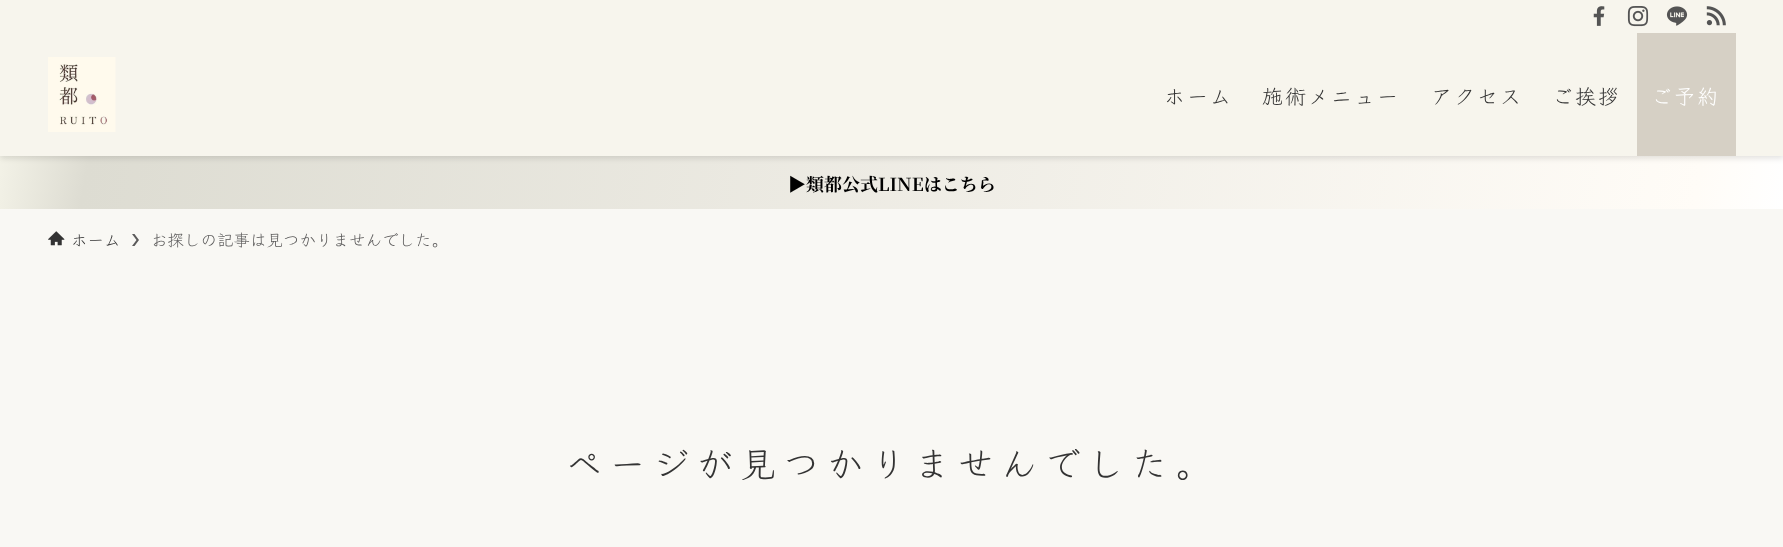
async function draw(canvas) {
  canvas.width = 1783
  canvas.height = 547
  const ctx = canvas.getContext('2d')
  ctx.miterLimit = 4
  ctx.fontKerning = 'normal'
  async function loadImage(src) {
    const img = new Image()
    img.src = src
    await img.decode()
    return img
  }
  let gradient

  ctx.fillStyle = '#f9f8f4'
  ctx.fillRect(0, 0, 1783, 547)
  gradient = ctx.createLinearGradient(22, 29, 1761, 336)
  gradient.addColorStop(0, '#f3f2e7')
  gradient.addColorStop(0.05, '#dddcd2')
  gradient.addColorStop(0.95, '#fffcf7')
  gradient.addColorStop(1, '#fff')
  ctx.fillStyle = gradient
  ctx.fillRect(0, 156, 1783, 53)
  ctx.fillStyle = '#0000001f'
  ctx.filter = 'blur(3px)'
  ctx.beginPath()
  ctx.rect(0, 2, 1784, 156)
  ctx.fill()
  ctx.filter = 'none'
  ctx.fillStyle = '#f7f5ed'
  ctx.fillRect(0, 0, 1783, 156)
  ctx.drawImage(await loadImage('image0.png'), 1593, 6, 12, 20)
  ctx.drawImage(await loadImage('image1.png'), 1627, 6, 22, 21)
  ctx.drawImage(await loadImage('image2.png'), 1666, 6, 22, 20)
  ctx.drawImage(await loadImage('image3.png'), 1706, 6, 20, 20)
  ctx.drawImage(await loadImage('image4.png'), 48, 57, 68, 75)
  ctx.letterSpacing = '2px'
  ctx.font = '21px Klee One'
  ctx.fillStyle = '#333'
  ctx.fillText('ホーム', 1164, 104)
  ctx.fillText('施術メニュー', 1262, 104)
  ctx.fillText('アクセス', 1431, 104)
  ctx.fillText('ご挨拶', 1552, 104)
  ctx.fillStyle = '#d6d0c5'
  ctx.fillRect(1637, 33, 99, 123)
  ctx.fillStyle = '#fff'
  ctx.fillText('ご予約', 1651, 104)
  ctx.letterSpacing = '0px'
  ctx.font = 'bold 18px Noto Serif JP'
  ctx.fillStyle = '#000'
  ctx.fillText('▶︎類都公式LINEはこちら', 788, 191)
  ctx.drawImage(await loadImage('image5.png'), 48, 231, 17, 15)
  ctx.font = '16.5px Klee One'
  ctx.fillStyle = '#333'
  ctx.fillText('ホーム', 71, 246)
  ctx.fillStyle = '#5b5a5a'
  ctx.beginPath()
  ctx.moveTo(134.5, 234)
  ctx.lineTo(132, 234)
  ctx.lineTo(136.5, 240)
  ctx.lineTo(132, 246)
  ctx.lineTo(134.5, 246)
  ctx.lineTo(139, 240)
  ctx.closePath()
  ctx.fill()
  ctx.fillText('お探しの記事は見つかりませんでした。', 151, 246)
  ctx.letterSpacing = '7.5px'
  ctx.font = '36px Klee One'
  ctx.fillStyle = '#333'
  ctx.fillText('ページが見つかりませんでした。', 566, 477)
}

draw(document.querySelector('canvas'))
